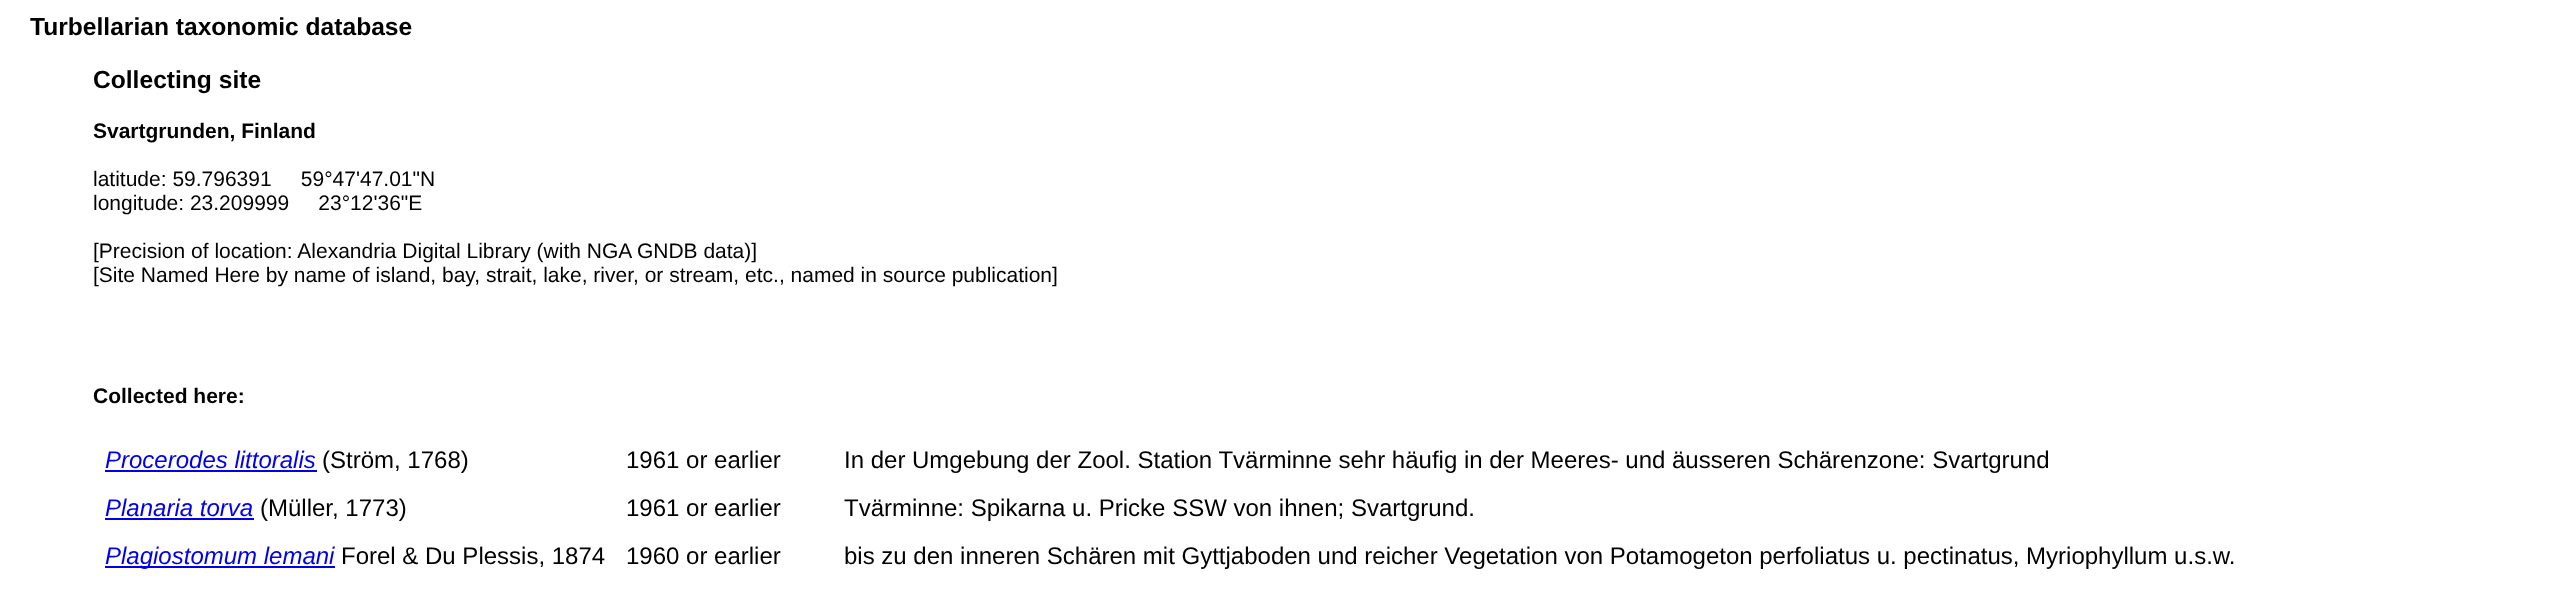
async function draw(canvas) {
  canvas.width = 2554
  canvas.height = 615
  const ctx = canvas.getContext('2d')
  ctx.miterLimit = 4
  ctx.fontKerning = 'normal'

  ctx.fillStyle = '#fff'
  ctx.fillRect(0, 0, 2554, 615)
  ctx.font = 'bold 24.6px Liberation Sans'
  ctx.fillStyle = '#000'
  ctx.fillText('Turbellarian taxonomic database', 30, 35)
  ctx.fillText('Collecting site', 93, 88)
  ctx.font = 'bold 21px Liberation Sans'
  ctx.fillText('Svartgrunden, Finland', 93, 138)
  ctx.font = '21px Liberation Sans'
  ctx.fillText('latitude: 59.796391     59°47\'47.01"N', 93, 186)
  ctx.fillText('longitude: 23.209999     23°12\'36"E', 93, 210)
  ctx.fillText('[Precision of location: Alexandria Digital Library (with NGA GNDB data)]', 93, 258)
  ctx.fillText('[Site Named Here by name of island, bay, strait, lake, river, or stream, etc., named in source publication]', 93, 282)
  ctx.font = 'bold 21px Liberation Sans'
  ctx.fillText('Collected here:', 93, 403)
  ctx.font = 'italic 24px Liberation Sans'
  ctx.fillStyle = '#00e'
  ctx.fillText('Procerodes littoralis', 105, 468)
  ctx.fillRect(105, 470, 212, 2)
  ctx.font = '24px Liberation Sans'
  ctx.fillStyle = '#000'
  ctx.fillText('(Ström, 1768)', 322, 468)
  ctx.fillText('1961 or earlier', 626, 468)
  ctx.fillText('In der Umgebung der Zool. Station Tvärminne sehr häufig in der Meeres- und äusseren Schärenzone: Svartgrund', 844, 468)
  ctx.font = 'italic 24px Liberation Sans'
  ctx.fillStyle = '#00e'
  ctx.fillText('Planaria torva', 105, 516)
  ctx.fillRect(105, 518, 149, 2)
  ctx.font = '24px Liberation Sans'
  ctx.fillStyle = '#000'
  ctx.fillText('(Müller, 1773)', 260, 516)
  ctx.fillText('1961 or earlier', 626, 516)
  ctx.fillText('Tvärminne: Spikarna u. Pricke SSW von ihnen; Svartgrund.', 844, 516)
  ctx.fillStyle = '#00e'
  ctx.fillRect(105, 566, 230, 2)
  ctx.font = 'italic 24px Liberation Sans'
  ctx.fillText('Plagiostomum lemani', 105, 564)
  ctx.font = '24px Liberation Sans'
  ctx.fillStyle = '#000'
  ctx.fillText('Forel & Du Plessis, 1874', 341, 564)
  ctx.fillText('1960 or earlier', 626, 564)
  ctx.fillText('bis zu den inneren Schären mit Gyttjaboden und reicher Vegetation von Potamogeton perfoliatus u. pectinatus, Myriophyllum u.s.w.', 844, 564)
}

draw(document.querySelector('canvas'))
